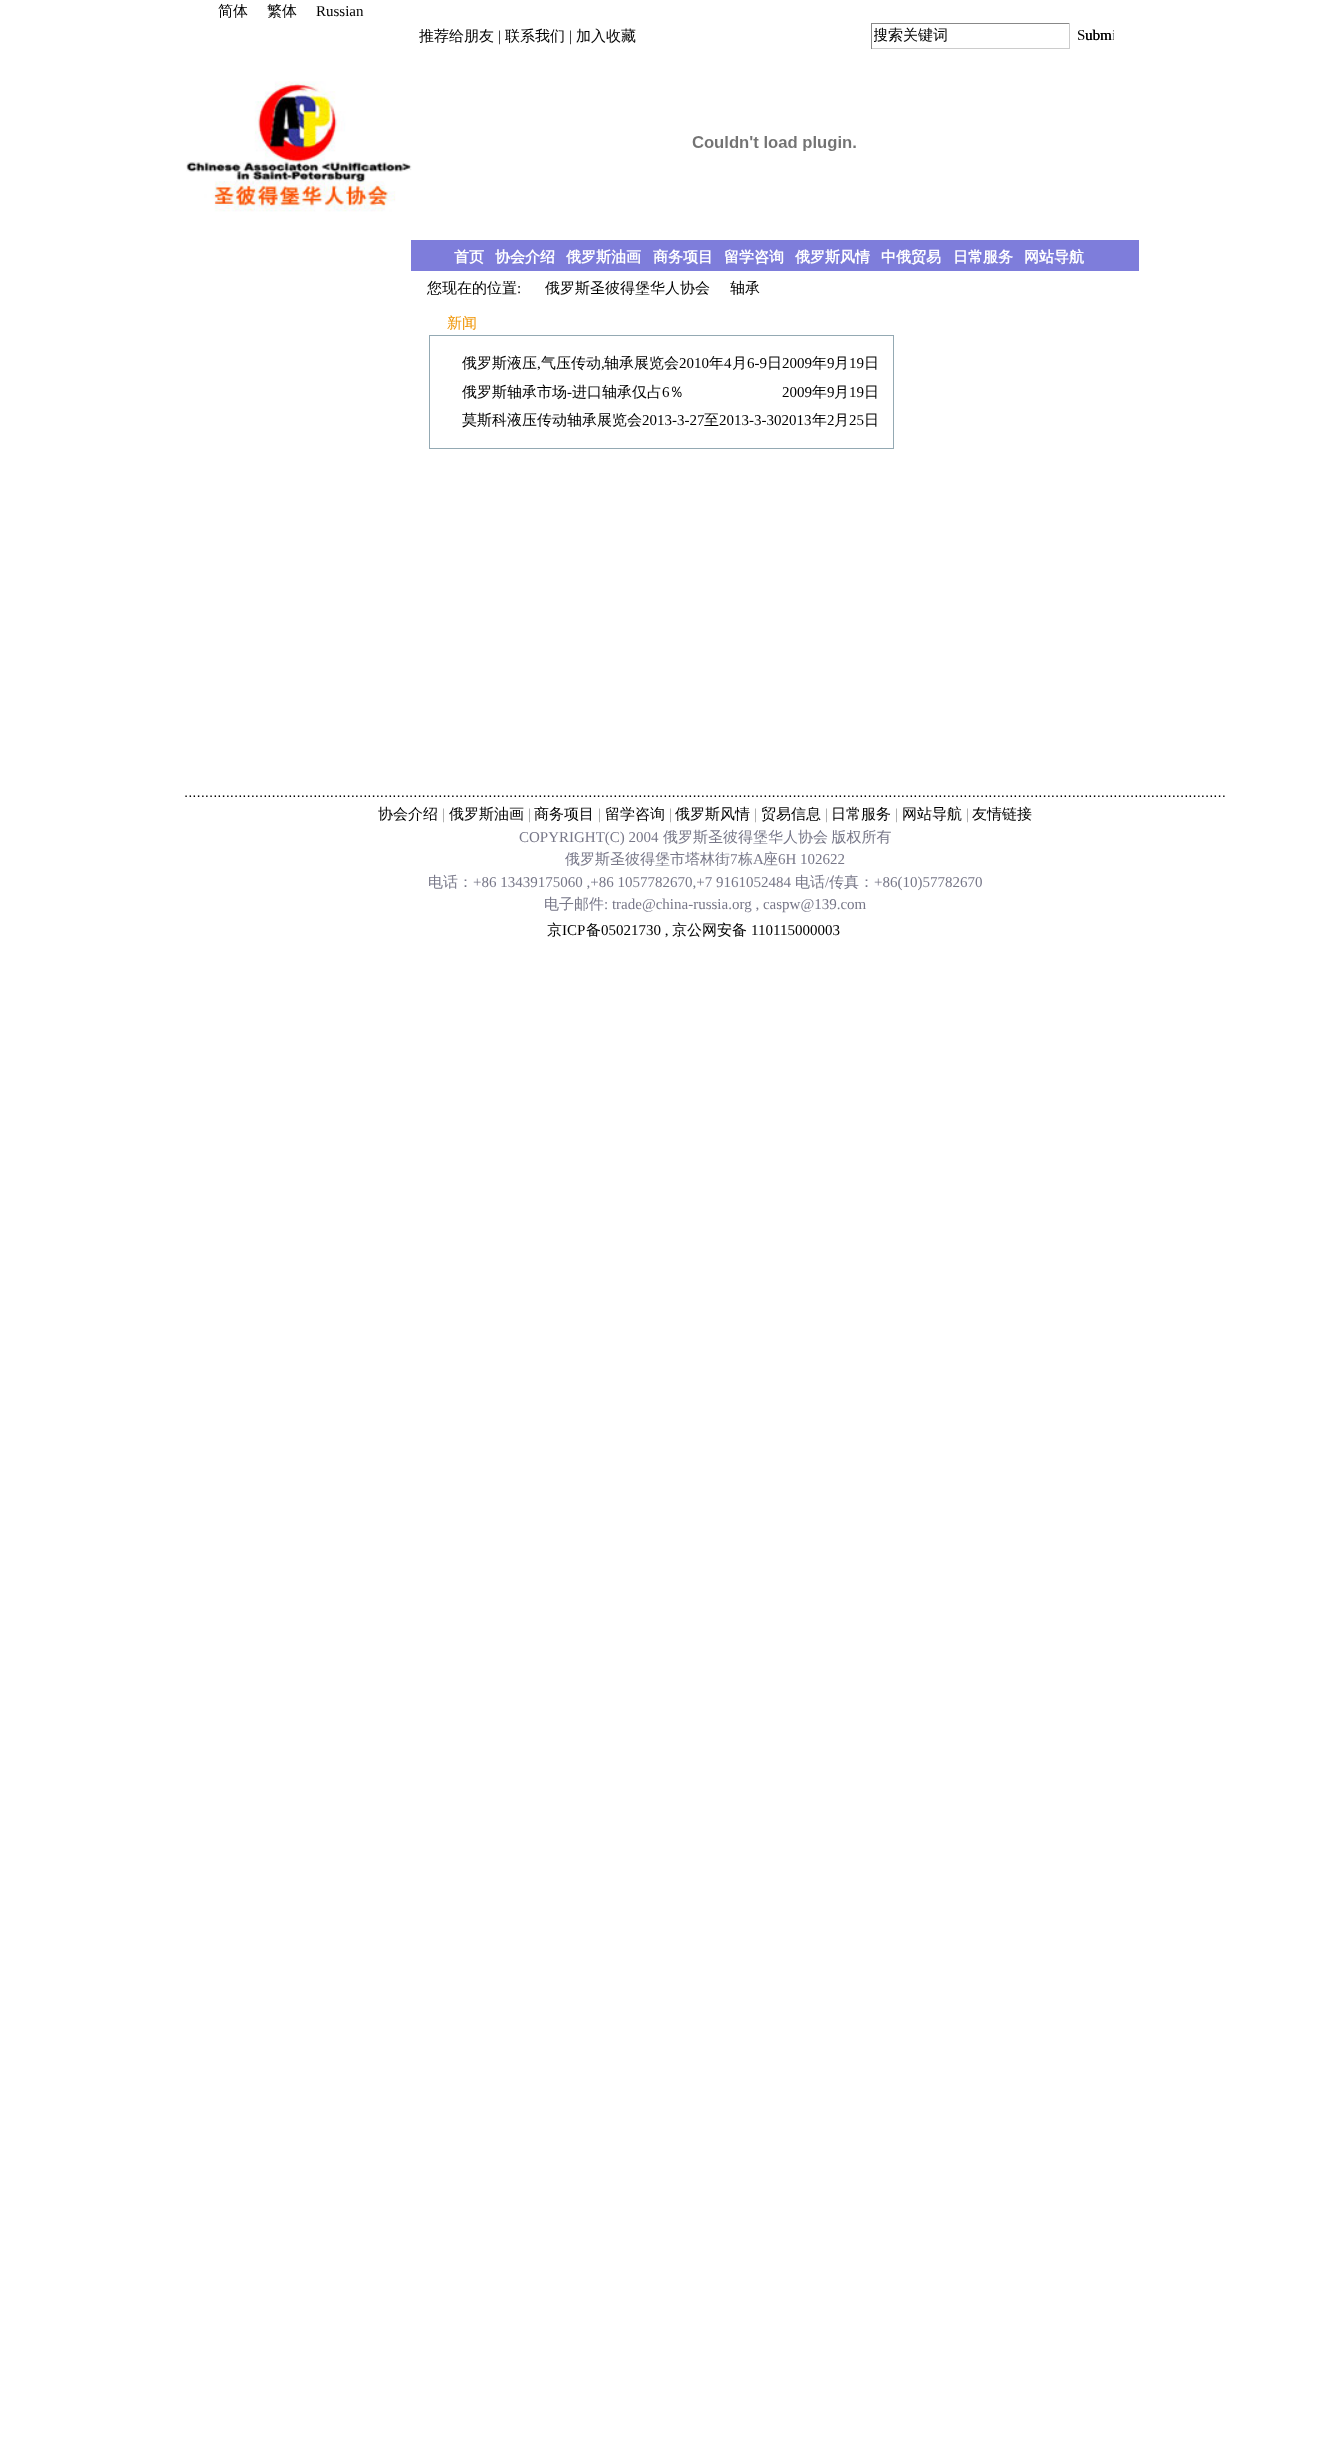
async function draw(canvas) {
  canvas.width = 1321
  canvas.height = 2442
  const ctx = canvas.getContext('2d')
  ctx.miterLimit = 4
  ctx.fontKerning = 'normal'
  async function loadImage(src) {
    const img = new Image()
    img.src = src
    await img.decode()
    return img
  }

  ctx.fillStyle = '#fff'
  ctx.fillRect(0, 0, 1321, 2442)
  ctx.font = '500 15px WenQuanYi Zen Hei'
  ctx.fillStyle = '#000'
  ctx.fillText('简体', 218, 16)
  ctx.fillText('繁体', 267, 16)
  ctx.font = '15px Liberation Serif'
  ctx.fillText('Russian', 316, 16)
  ctx.font = '500 15px WenQuanYi Zen Hei'
  ctx.fillText('推荐给朋友', 419, 41)
  ctx.font = '15px Liberation Serif'
  ctx.fillText('|', 498, 41)
  ctx.font = '500 15px WenQuanYi Zen Hei'
  ctx.fillText('联系我们', 505, 41)
  ctx.font = '15px Liberation Serif'
  ctx.fillText('|', 569, 41)
  ctx.font = '500 15px WenQuanYi Zen Hei'
  ctx.fillText('加入收藏', 576, 41)
  ctx.fillStyle = '#888'
  ctx.fillRect(871, 23, 199, 1)
  ctx.fillStyle = '#ccc'
  ctx.fillRect(1069, 23, 1, 26)
  ctx.fillRect(871, 48, 199, 1)
  ctx.fillStyle = '#888'
  ctx.fillRect(871, 23, 1, 26)
  ctx.save()
  ctx.beginPath()
  ctx.rect(874, 25, 194, 21)
  ctx.clip()
  ctx.fillStyle = '#000'
  ctx.fillText('搜索关键词', 873, 40)
  ctx.restore()
  ctx.drawImage(await loadImage('image0.png'), 1078, 30, 36, 10)
  ctx.font = '15px Liberation Serif'
  ctx.fillStyle = '#000'
  ctx.fillText('ubm', 1085, 40)
  ctx.drawImage(await loadImage('image1.png'), 186, 81, 226, 131)
  ctx.drawImage(await loadImage('image2.png'), 692, 136, 164, 15)
  ctx.fillStyle = '#7e7ddb'
  ctx.fillRect(411, 240, 728, 31)
  ctx.font = 'bold 15px WenQuanYi Zen Hei'
  ctx.fillStyle = '#fff'
  ctx.fillText('首页', 454, 262)
  ctx.fillText('协会介绍', 495, 262)
  ctx.fillText('俄罗斯油画', 566, 262)
  ctx.fillText('商务项目', 653, 262)
  ctx.fillText('留学咨询', 724, 262)
  ctx.fillText('俄罗斯风情', 795, 262)
  ctx.fillText('中俄贸易', 881, 262)
  ctx.fillText('日常服务', 953, 262)
  ctx.fillText('网站导航', 1024, 262)
  ctx.font = '500 15px WenQuanYi Zen Hei'
  ctx.fillStyle = '#000'
  ctx.fillText('您现在的位置', 427, 293)
  ctx.font = '15px Liberation Serif'
  ctx.fillText(':', 517, 293)
  ctx.font = '500 15px WenQuanYi Zen Hei'
  ctx.fillText('俄罗斯圣彼得堡华人协会', 545, 293)
  ctx.fillText('轴承', 730, 293)
  ctx.fillStyle = '#f09403'
  ctx.fillText('新闻', 447, 328)
  ctx.strokeStyle = '#94a9b3'
  ctx.strokeRect(429.5, 335.5, 464, 113)
  ctx.fillStyle = '#000'
  ctx.fillText('俄罗斯液压', 462, 368)
  ctx.font = '15px Liberation Serif'
  ctx.fillText(',', 537, 368)
  ctx.font = '500 15px WenQuanYi Zen Hei'
  ctx.fillText('气压传动', 541, 368)
  ctx.font = '15px Liberation Serif'
  ctx.fillText(',', 601, 368)
  ctx.font = '500 15px WenQuanYi Zen Hei'
  ctx.fillText('轴承展览会', 604, 368)
  ctx.font = '15px Liberation Serif'
  ctx.fillText('2010', 679, 368)
  ctx.font = '500 15px WenQuanYi Zen Hei'
  ctx.fillText('年', 709, 368)
  ctx.font = '15px Liberation Serif'
  ctx.fillText('4', 724, 368)
  ctx.font = '500 15px WenQuanYi Zen Hei'
  ctx.fillText('月', 732, 368)
  ctx.font = '15px Liberation Serif'
  ctx.fillText('6-9', 747, 368)
  ctx.font = '500 15px WenQuanYi Zen Hei'
  ctx.fillText('日', 767, 368)
  ctx.font = '15px Liberation Serif'
  ctx.fillText('2009', 782, 368)
  ctx.font = '500 15px WenQuanYi Zen Hei'
  ctx.fillText('年', 812, 368)
  ctx.font = '15px Liberation Serif'
  ctx.fillText('9', 827, 368)
  ctx.font = '500 15px WenQuanYi Zen Hei'
  ctx.fillText('月', 834, 368)
  ctx.font = '15px Liberation Serif'
  ctx.fillText('19', 849, 368)
  ctx.font = '500 15px WenQuanYi Zen Hei'
  ctx.fillText('日', 864, 368)
  ctx.fillText('俄罗斯轴承市场', 462, 397)
  ctx.font = '15px Liberation Serif'
  ctx.fillText('-', 567, 397)
  ctx.font = '500 15px WenQuanYi Zen Hei'
  ctx.fillText('进口轴承仅占', 572, 397)
  ctx.font = '15px Liberation Serif'
  ctx.fillText('6', 662, 397)
  ctx.font = '500 15px WenQuanYi Zen Hei'
  ctx.fillText('％', 669, 397)
  ctx.font = '15px Liberation Serif'
  ctx.fillText('2009', 782, 397)
  ctx.font = '500 15px WenQuanYi Zen Hei'
  ctx.fillText('年', 812, 397)
  ctx.font = '15px Liberation Serif'
  ctx.fillText('9', 827, 397)
  ctx.font = '500 15px WenQuanYi Zen Hei'
  ctx.fillText('月', 834, 397)
  ctx.font = '15px Liberation Serif'
  ctx.fillText('19', 849, 397)
  ctx.font = '500 15px WenQuanYi Zen Hei'
  ctx.fillText('日', 864, 397)
  ctx.fillText('莫斯科液压传动轴承展览会', 462, 425)
  ctx.font = '15px Liberation Serif'
  ctx.fillText('2013-3-27', 642, 425)
  ctx.font = '500 15px WenQuanYi Zen Hei'
  ctx.fillText('至', 704, 425)
  ctx.font = '15px Liberation Serif'
  ctx.fillText('2013-3-302013', 719, 425)
  ctx.font = '500 15px WenQuanYi Zen Hei'
  ctx.fillText('年', 812, 425)
  ctx.font = '15px Liberation Serif'
  ctx.fillText('2', 827, 425)
  ctx.font = '500 15px WenQuanYi Zen Hei'
  ctx.fillText('月', 834, 425)
  ctx.font = '15px Liberation Serif'
  ctx.fillText('25', 849, 425)
  ctx.font = '500 15px WenQuanYi Zen Hei'
  ctx.fillText('日', 864, 425)
  ctx.font = '15px Liberation Sans'
  ctx.fillText('..........................................................................................................................................................................................................................................................', 184, 797)
  ctx.font = '500 15px WenQuanYi Zen Hei'
  ctx.fillText('协会介绍', 378, 819)
  ctx.font = '15px Liberation Serif'
  ctx.fillStyle = '#999'
  ctx.fillText('|', 442, 819)
  ctx.font = '500 15px WenQuanYi Zen Hei'
  ctx.fillStyle = '#000'
  ctx.fillText('俄罗斯油画', 449, 819)
  ctx.font = '15px Liberation Serif'
  ctx.fillStyle = '#999'
  ctx.fillText('|', 528, 819)
  ctx.font = '500 15px WenQuanYi Zen Hei'
  ctx.fillStyle = '#000'
  ctx.fillText('商务项目', 534, 819)
  ctx.font = '15px Liberation Serif'
  ctx.fillStyle = '#999'
  ctx.fillText('|', 598, 819)
  ctx.font = '500 15px WenQuanYi Zen Hei'
  ctx.fillStyle = '#000'
  ctx.fillText('留学咨询', 605, 819)
  ctx.font = '15px Liberation Serif'
  ctx.fillStyle = '#999'
  ctx.fillText('|', 669, 819)
  ctx.font = '500 15px WenQuanYi Zen Hei'
  ctx.fillStyle = '#000'
  ctx.fillText('俄罗斯风情', 675, 819)
  ctx.font = '15px Liberation Serif'
  ctx.fillStyle = '#999'
  ctx.fillText('|', 754, 819)
  ctx.font = '500 15px WenQuanYi Zen Hei'
  ctx.fillStyle = '#000'
  ctx.fillText('贸易信息', 761, 819)
  ctx.font = '15px Liberation Serif'
  ctx.fillStyle = '#999'
  ctx.fillText('|', 825, 819)
  ctx.font = '500 15px WenQuanYi Zen Hei'
  ctx.fillStyle = '#000'
  ctx.fillText('日常服务', 831, 819)
  ctx.font = '15px Liberation Serif'
  ctx.fillStyle = '#999'
  ctx.fillText('|', 895, 819)
  ctx.font = '500 15px WenQuanYi Zen Hei'
  ctx.fillStyle = '#000'
  ctx.fillText('网站导航', 902, 819)
  ctx.font = '15px Liberation Serif'
  ctx.fillStyle = '#999'
  ctx.fillText('|', 966, 819)
  ctx.font = '500 15px WenQuanYi Zen Hei'
  ctx.fillStyle = '#000'
  ctx.fillText('友情链接', 972, 819)
  ctx.font = '15px Liberation Serif'
  ctx.fillStyle = '#778'
  ctx.fillText('COPYRIGHT(C) 2004', 519, 842)
  ctx.wordSpacing = '-1px'
  ctx.font = '500 15px WenQuanYi Zen Hei'
  ctx.fillText('俄罗斯圣彼得堡华人协会 版权所有', 663, 842)
  ctx.wordSpacing = '0px'
  ctx.fillText('俄罗斯圣彼得堡市塔林街', 565, 864)
  ctx.font = '15px Liberation Serif'
  ctx.fillText('7', 730, 864)
  ctx.font = '500 15px WenQuanYi Zen Hei'
  ctx.fillText('栋', 738, 864)
  ctx.font = '15px Liberation Serif'
  ctx.fillText('A', 753, 864)
  ctx.font = '500 15px WenQuanYi Zen Hei'
  ctx.fillText('座', 763, 864)
  ctx.font = '15px Liberation Serif'
  ctx.fillText('6H 102622', 778, 864)
  ctx.font = '500 15px WenQuanYi Zen Hei'
  ctx.fillText('电话：', 428, 887)
  ctx.font = '15px Liberation Serif'
  ctx.fillText('+86 13439175060 ,+86 1057782670,+7 9161052484', 473, 887)
  ctx.font = '500 15px WenQuanYi Zen Hei'
  ctx.fillText('电话', 795, 887)
  ctx.font = '15px Liberation Serif'
  ctx.fillText('/', 825, 887)
  ctx.font = '500 15px WenQuanYi Zen Hei'
  ctx.fillText('传真：', 829, 887)
  ctx.font = '15px Liberation Serif'
  ctx.fillText('+86(10)57782670', 874, 887)
  ctx.font = '500 15px WenQuanYi Zen Hei'
  ctx.fillText('电子邮件', 544, 909)
  ctx.font = '15px Liberation Serif'
  ctx.fillText(': trade@china-russia.org , caspw@139.com', 604, 909)
  ctx.font = '500 15px WenQuanYi Zen Hei'
  ctx.fillStyle = '#000'
  ctx.fillText('京', 547, 935)
  ctx.font = '15px Liberation Serif'
  ctx.fillText('ICP', 562, 935)
  ctx.font = '500 15px WenQuanYi Zen Hei'
  ctx.fillText('备', 586, 935)
  ctx.font = '15px Liberation Serif'
  ctx.fillText('05021730 ,', 601, 935)
  ctx.font = '500 15px WenQuanYi Zen Hei'
  ctx.fillText('京公网安备', 672, 935)
  ctx.font = '15px Liberation Serif'
  ctx.fillText('110115000003', 751, 935)
}

draw(document.querySelector('canvas'))
